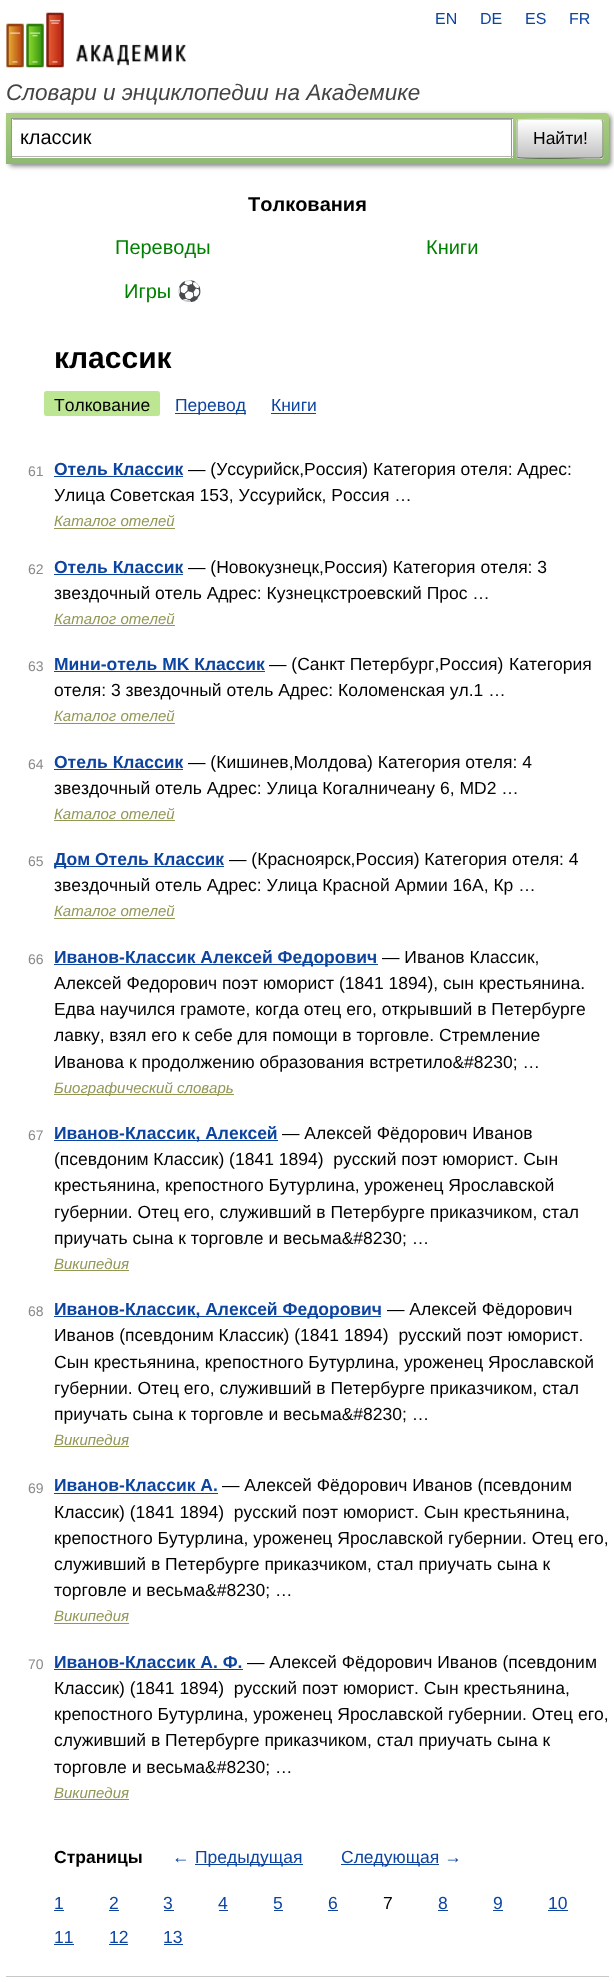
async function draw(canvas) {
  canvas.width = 614
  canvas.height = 1982
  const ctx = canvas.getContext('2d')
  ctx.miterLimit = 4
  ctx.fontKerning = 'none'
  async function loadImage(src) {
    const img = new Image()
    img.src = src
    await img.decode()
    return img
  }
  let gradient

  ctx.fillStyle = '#fff'
  ctx.fillRect(0, 0, 614, 1982)
  ctx.drawImage(await loadImage('image0.png'), 6, 12, 181, 56)
  ctx.font = '16px Liberation Sans'
  ctx.fillStyle = '#0d44a0'
  ctx.fillText('EN', 435, 24)
  ctx.fillText('DE', 480, 24)
  ctx.fillText('ES', 525, 24)
  ctx.fillText('FR', 569, 24)
  ctx.font = 'italic 22.5px Liberation Sans'
  ctx.fillStyle = '#454545'
  ctx.fillText('Словари и энциклопедии на Академике', 6, 100)
  ctx.fillStyle = '#00000080'
  ctx.filter = 'blur(2.5px)'
  ctx.beginPath()
  ctx.roundRect(9, 115, 602, 51, 4)
  ctx.fill()
  ctx.filter = 'none'
  gradient = ctx.createLinearGradient(308, 112, 308, 164)
  gradient.addColorStop(0, '#abcf7e')
  gradient.addColorStop(1, '#8eb874')
  ctx.fillStyle = gradient
  ctx.beginPath()
  ctx.roundRect(6, 113, 603, 51, [0, 4, 4, 0])
  ctx.fill()
  ctx.fillStyle = '#fff'
  ctx.fillRect(12, 119, 501, 39)
  ctx.fillStyle = '#b3b3b3'
  ctx.fillRect(13, 119, 498, 1)
  ctx.fillStyle = '#949494'
  ctx.fillRect(11, 118, 502, 1)
  ctx.fillRect(511, 118, 1, 40)
  ctx.fillStyle = '#b4b4b4'
  ctx.fillRect(11, 156, 502, 1)
  ctx.fillStyle = '#949494'
  ctx.fillRect(11, 118, 1, 40)
  ctx.font = '20px Liberation Sans'
  ctx.fillStyle = '#000'
  ctx.fillText('классик', 20, 144)
  ctx.save()
  ctx.beginPath()
  ctx.roundRect(516, 119, 88, 40, 4)
  ctx.clip()
  gradient = ctx.createLinearGradient(560, 83, 560, 120)
  gradient.addColorStop(0, '#fff')
  gradient.addColorStop(1, '#c1c1c1')
  ctx.fillStyle = gradient
  ctx.fillRect(516, 119, 88, 1)
  gradient = ctx.createLinearGradient(560, 120, 560, 158)
  gradient.addColorStop(0, '#fff')
  gradient.addColorStop(1, '#c1c1c1')
  ctx.fillStyle = gradient
  ctx.fillRect(516, 120, 88, 38)
  gradient = ctx.createLinearGradient(560, 158, 560, 195)
  gradient.addColorStop(0, '#fff')
  gradient.addColorStop(1, '#c1c1c1')
  ctx.fillStyle = gradient
  ctx.fillRect(516, 158, 88, 1)
  ctx.restore()
  ctx.beginPath()
  ctx.moveTo(518, 120.5)
  ctx.lineTo(518, 120)
  ctx.bezierCurveTo(520, 118.5, 579, 119.5, 586.5, 119.5)
  ctx.lineTo(600, 119.5)
  ctx.lineTo(602, 120.5)
  ctx.strokeStyle = '#d1e4bc'
  ctx.lineWidth = 1.2
  ctx.stroke()
  ctx.beginPath()
  ctx.moveTo(602, 120.5)
  ctx.bezierCurveTo(603, 121, 603, 121.5, 603, 122.5)
  ctx.lineTo(603, 155)
  ctx.bezierCurveTo(603, 156, 603, 156.5, 602, 157)
  ctx.strokeStyle = '#7a8e69'
  ctx.stroke()
  ctx.beginPath()
  ctx.moveTo(602, 157)
  ctx.lineTo(600, 158)
  ctx.lineTo(586.5, 158)
  ctx.bezierCurveTo(579, 158, 520, 159, 518, 157.5)
  ctx.lineTo(518, 157)
  ctx.strokeStyle = '#5d7250'
  ctx.stroke()
  ctx.beginPath()
  ctx.moveTo(518, 157)
  ctx.bezierCurveTo(517, 156.5, 517, 156, 517, 155)
  ctx.lineTo(517, 122.5)
  ctx.bezierCurveTo(517, 121.5, 517, 121, 518, 120.5)
  ctx.strokeStyle = '#9aae89'
  ctx.stroke()
  ctx.font = '17.5px Liberation Sans'
  ctx.fillText('Найти!', 533, 144)
  ctx.font = 'bold 20px Liberation Sans'
  ctx.fillText('Толкования', 248, 211)
  ctx.font = '20px Liberation Sans'
  ctx.fillStyle = '#008000'
  ctx.fillText('Переводы', 115, 254)
  ctx.fillText('Книги', 426, 254)
  ctx.fillText('Игры', 124, 298)
  ctx.font = '20px Noto Color Emoji'
  ctx.fillText('⚽', 177, 298)
  ctx.font = 'bold 30px Liberation Sans'
  ctx.fillStyle = '#000'
  ctx.fillText('классик', 54, 368)
  ctx.fillStyle = '#bde693'
  ctx.beginPath()
  ctx.roundRect(44, 391, 116, 25, 2.5)
  ctx.fill()
  ctx.font = '17.5px Liberation Sans'
  ctx.fillStyle = '#000'
  ctx.fillText('Толкование', 54, 411)
  ctx.fillStyle = '#0d44a0'
  ctx.fillRect(175, 413, 71, 1)
  ctx.fillText('Перевод', 175, 411)
  ctx.fillText('Книги', 271, 411)
  ctx.fillRect(271, 413, 45, 1)
  ctx.font = '14px Liberation Sans'
  ctx.fillStyle = '#898989'
  ctx.fillText('61', 28, 476)
  ctx.font = 'bold 17.5px Liberation Sans'
  ctx.fillStyle = '#0d44a0'
  ctx.fillText('Отель Классик', 54, 475)
  ctx.fillRect(54, 476, 129, 1)
  ctx.font = '17.5px Liberation Sans'
  ctx.fillStyle = '#000'
  ctx.fillText('— (Уссурийск,Россия) Категория отеля:', 188, 475)
  ctx.fillText('Адрес:', 517, 475)
  ctx.fillText('Улица Советская 153, Уссурийск, Россия …', 54, 501)
  ctx.font = 'italic 15px Liberation Sans'
  ctx.fillStyle = '#939756'
  ctx.fillText('Каталог отелей', 54, 526)
  ctx.fillRect(54, 528, 121, 1)
  ctx.font = '14px Liberation Sans'
  ctx.fillStyle = '#898989'
  ctx.fillText('62', 28, 574)
  ctx.font = 'bold 17.5px Liberation Sans'
  ctx.fillStyle = '#0d44a0'
  ctx.fillText('Отель Классик', 54, 573)
  ctx.fillRect(54, 574, 129, 1)
  ctx.font = '17.5px Liberation Sans'
  ctx.fillStyle = '#000'
  ctx.fillText('— (Новокузнецк,Россия) Категория отеля: 3', 188, 573)
  ctx.fillText('звездочный отель Адрес: Кузнецкстроевский Прос …', 54, 599)
  ctx.font = 'italic 15px Liberation Sans'
  ctx.fillStyle = '#939756'
  ctx.fillText('Каталог отелей', 54, 624)
  ctx.fillRect(54, 625, 121, 1)
  ctx.font = '14px Liberation Sans'
  ctx.fillStyle = '#898989'
  ctx.fillText('63', 28, 671)
  ctx.font = 'bold 17.5px Liberation Sans'
  ctx.fillStyle = '#0d44a0'
  ctx.fillText('Мини-отель MK Классик', 54, 670)
  ctx.fillRect(54, 671, 211, 1)
  ctx.font = '17.5px Liberation Sans'
  ctx.fillStyle = '#000'
  ctx.fillText('— (Санкт Петербург,Россия)', 269, 670)
  ctx.fillText('Категория', 509, 670)
  ctx.fillText('отеля: 3 звездочный отель Адрес: Коломенская ул.1 …', 54, 696)
  ctx.font = 'italic 15px Liberation Sans'
  ctx.fillStyle = '#939756'
  ctx.fillText('Каталог отелей', 54, 721)
  ctx.fillRect(54, 723, 121, 1)
  ctx.font = '14px Liberation Sans'
  ctx.fillStyle = '#898989'
  ctx.fillText('64', 28, 769)
  ctx.font = 'bold 17.5px Liberation Sans'
  ctx.fillStyle = '#0d44a0'
  ctx.fillText('Отель Классик', 54, 768)
  ctx.fillRect(54, 769, 129, 1)
  ctx.font = '17.5px Liberation Sans'
  ctx.fillStyle = '#000'
  ctx.fillText('— (Кишинев,Молдова) Категория отеля: 4', 188, 768)
  ctx.fillText('звездочный отель Адрес: Улица Когалничеану', 54, 794)
  ctx.fillText('6, MD2 …', 440, 794)
  ctx.font = 'italic 15px Liberation Sans'
  ctx.fillStyle = '#939756'
  ctx.fillText('Каталог отелей', 54, 819)
  ctx.fillRect(54, 820, 121, 1)
  ctx.font = '14px Liberation Sans'
  ctx.fillStyle = '#898989'
  ctx.fillText('65', 28, 866)
  ctx.fillStyle = '#0d44a0'
  ctx.fillRect(54, 866, 170, 1)
  ctx.font = 'bold 17.5px Liberation Sans'
  ctx.fillText('Дом Отель Классик', 54, 865)
  ctx.font = '17.5px Liberation Sans'
  ctx.fillStyle = '#000'
  ctx.fillText('— (Красноярск,Россия) Категория отеля: 4', 229, 865)
  ctx.fillText('звездочный отель Адрес: Улица Красной Армии 16А, Кр …', 54, 891)
  ctx.font = 'italic 15px Liberation Sans'
  ctx.fillStyle = '#939756'
  ctx.fillText('Каталог отелей', 54, 916)
  ctx.fillRect(54, 918, 121, 1)
  ctx.font = '14px Liberation Sans'
  ctx.fillStyle = '#898989'
  ctx.fillText('66', 28, 964)
  ctx.fillStyle = '#0d44a0'
  ctx.fillRect(54, 964, 324, 1)
  ctx.font = 'bold 17.5px Liberation Sans'
  ctx.fillText('Иванов-Классик Алексей Федорович', 54, 963)
  ctx.font = '17.5px Liberation Sans'
  ctx.fillStyle = '#000'
  ctx.fillText('— Иванов Классик,', 382, 963)
  ctx.fillText('Алексей Федорович поэт юморист (1841 1894), сын крестьянина.', 54, 989)
  ctx.fillText('Едва научился грамоте, когда отец его, открывший в Петербурге', 54, 1015)
  ctx.fillText('лавку, взял его к себе для помощи в торговле. Стремление', 54, 1041)
  ctx.fillText('Иванова к продолжению образования встретило&#8230; …', 54, 1068)
  ctx.fillStyle = '#939756'
  ctx.fillRect(54, 1094, 180, 1)
  ctx.font = 'italic 15px Liberation Sans'
  ctx.fillText('Биографический словарь', 54, 1093)
  ctx.font = '14px Liberation Sans'
  ctx.fillStyle = '#898989'
  ctx.fillText('67', 28, 1140)
  ctx.fillStyle = '#0d44a0'
  ctx.fillRect(54, 1140, 224, 1)
  ctx.font = 'bold 17.5px Liberation Sans'
  ctx.fillText('Иванов-Классик, Алексей', 54, 1139)
  ctx.font = '17.5px Liberation Sans'
  ctx.fillStyle = '#000'
  ctx.fillText('— Алексей Фёдорович Иванов', 282, 1139)
  ctx.fillText('(псевдоним Классик) (1841 1894)  русский поэт юморист. Сын', 54, 1165)
  ctx.fillText('крестьянина, крепостного Бутурлина, уроженец Ярославской', 54, 1191)
  ctx.fillText('губернии. Отец его, служивший в Петербурге приказчиком, стал', 54, 1218)
  ctx.fillText('приучать сына к торговле и весьма&#8230; …', 54, 1244)
  ctx.font = 'italic 15px Liberation Sans'
  ctx.fillStyle = '#939756'
  ctx.fillText('Википедия', 54, 1269)
  ctx.fillRect(54, 1270, 75, 1)
  ctx.font = '14px Liberation Sans'
  ctx.fillStyle = '#898989'
  ctx.fillText('68', 28, 1316)
  ctx.fillStyle = '#0d44a0'
  ctx.fillRect(54, 1316, 327, 1)
  ctx.font = 'bold 17.5px Liberation Sans'
  ctx.fillText('Иванов-Классик, Алексей Федорович', 54, 1315)
  ctx.font = '17.5px Liberation Sans'
  ctx.fillStyle = '#000'
  ctx.fillText('— Алексей Фёдорович', 387, 1315)
  ctx.fillText('Иванов (псевдоним Классик) (1841 1894)  русский поэт юморист.', 54, 1341)
  ctx.fillText('Сын крестьянина, крепостного Бутурлина, уроженец Ярославской', 54, 1368)
  ctx.fillText('губернии. Отец его, служивший в Петербурге приказчиком, стал', 54, 1394)
  ctx.fillText('приучать сына к торговле и весьма&#8230; …', 54, 1420)
  ctx.font = 'italic 15px Liberation Sans'
  ctx.fillStyle = '#939756'
  ctx.fillText('Википедия', 54, 1445)
  ctx.fillRect(54, 1446, 75, 1)
  ctx.font = '14px Liberation Sans'
  ctx.fillStyle = '#898989'
  ctx.fillText('69', 28, 1493)
  ctx.font = 'bold 17.5px Liberation Sans'
  ctx.fillStyle = '#0d44a0'
  ctx.fillText('Иванов-Классик А.', 54, 1491)
  ctx.fillRect(54, 1493, 164, 1)
  ctx.font = '17.5px Liberation Sans'
  ctx.fillStyle = '#000'
  ctx.fillText('— Алексей Фёдорович Иванов (псевдоним', 222, 1491)
  ctx.fillText('Классик) (1841 1894)  русский поэт юморист. Сын крестьянина,', 54, 1518)
  ctx.fillText('крепостного Бутурлина, уроженец Ярославской губернии. Отец его,', 54, 1544)
  ctx.fillText('служивший в Петербурге приказчиком, стал приучать сына к', 54, 1570)
  ctx.fillText('торговле и весьма&#8230; …', 54, 1596)
  ctx.font = 'italic 15px Liberation Sans'
  ctx.fillStyle = '#939756'
  ctx.fillText('Википедия', 54, 1621)
  ctx.fillRect(54, 1623, 75, 1)
  ctx.font = '14px Liberation Sans'
  ctx.fillStyle = '#898989'
  ctx.fillText('70', 28, 1669)
  ctx.font = 'bold 17.5px Liberation Sans'
  ctx.fillStyle = '#0d44a0'
  ctx.fillText('Иванов-Классик А. Ф.', 54, 1668)
  ctx.fillRect(54, 1669, 189, 1)
  ctx.font = '17.5px Liberation Sans'
  ctx.fillStyle = '#000'
  ctx.fillText('— Алексей Фёдорович Иванов (псевдоним', 247, 1668)
  ctx.fillText('Классик) (1841 1894)  русский поэт юморист. Сын крестьянина,', 54, 1694)
  ctx.fillText('крепостного Бутурлина, уроженец Ярославской губернии. Отец его,', 54, 1720)
  ctx.fillText('служивший в Петербурге приказчиком, стал приучать сына к', 54, 1746)
  ctx.fillText('торговле и весьма&#8230; …', 54, 1773)
  ctx.font = 'italic 15px Liberation Sans'
  ctx.fillStyle = '#939756'
  ctx.fillText('Википедия', 54, 1798)
  ctx.fillRect(54, 1799, 75, 1)
  ctx.font = 'bold 17.5px Liberation Sans'
  ctx.fillStyle = '#000'
  ctx.fillText('Страницы', 54, 1863)
  ctx.font = '17.5px Liberation Sans'
  ctx.fillStyle = '#0d44a0'
  ctx.fillText('←', 172, 1863)
  ctx.fillRect(195, 1864, 108, 1)
  ctx.fillText('Предыдущая', 195, 1863)
  ctx.fillRect(341, 1864, 98, 1)
  ctx.fillText('Следующая →', 341, 1863)
  ctx.fillText('1', 54, 1909)
  ctx.fillRect(54, 1910, 10, 1)
  ctx.fillText('2', 109, 1909)
  ctx.fillRect(109, 1910, 10, 1)
  ctx.fillText('3', 163, 1909)
  ctx.fillRect(164, 1910, 10, 1)
  ctx.fillText('4', 218, 1909)
  ctx.fillRect(219, 1910, 9, 1)
  ctx.fillText('5', 273, 1909)
  ctx.fillRect(274, 1910, 9, 1)
  ctx.fillText('6', 328, 1909)
  ctx.fillRect(328, 1910, 10, 1)
  ctx.fillStyle = '#000'
  ctx.fillText('7', 383, 1909)
  ctx.fillStyle = '#0d44a0'
  ctx.fillText('8', 438, 1909)
  ctx.fillRect(438, 1910, 10, 1)
  ctx.fillText('9', 493, 1909)
  ctx.fillRect(493, 1910, 10, 1)
  ctx.fillText('10', 548, 1909)
  ctx.fillRect(548, 1910, 20, 1)
  ctx.fillText('11', 54, 1943)
  ctx.fillRect(54, 1944, 20, 1)
  ctx.fillText('12', 109, 1943)
  ctx.fillRect(109, 1944, 19, 1)
  ctx.fillText('13', 163, 1943)
  ctx.fillRect(164, 1944, 19, 1)
  ctx.fillStyle = '#c7c7c7'
  ctx.fillRect(6, 1976, 603, 1)
}

draw(document.querySelector('canvas'))
